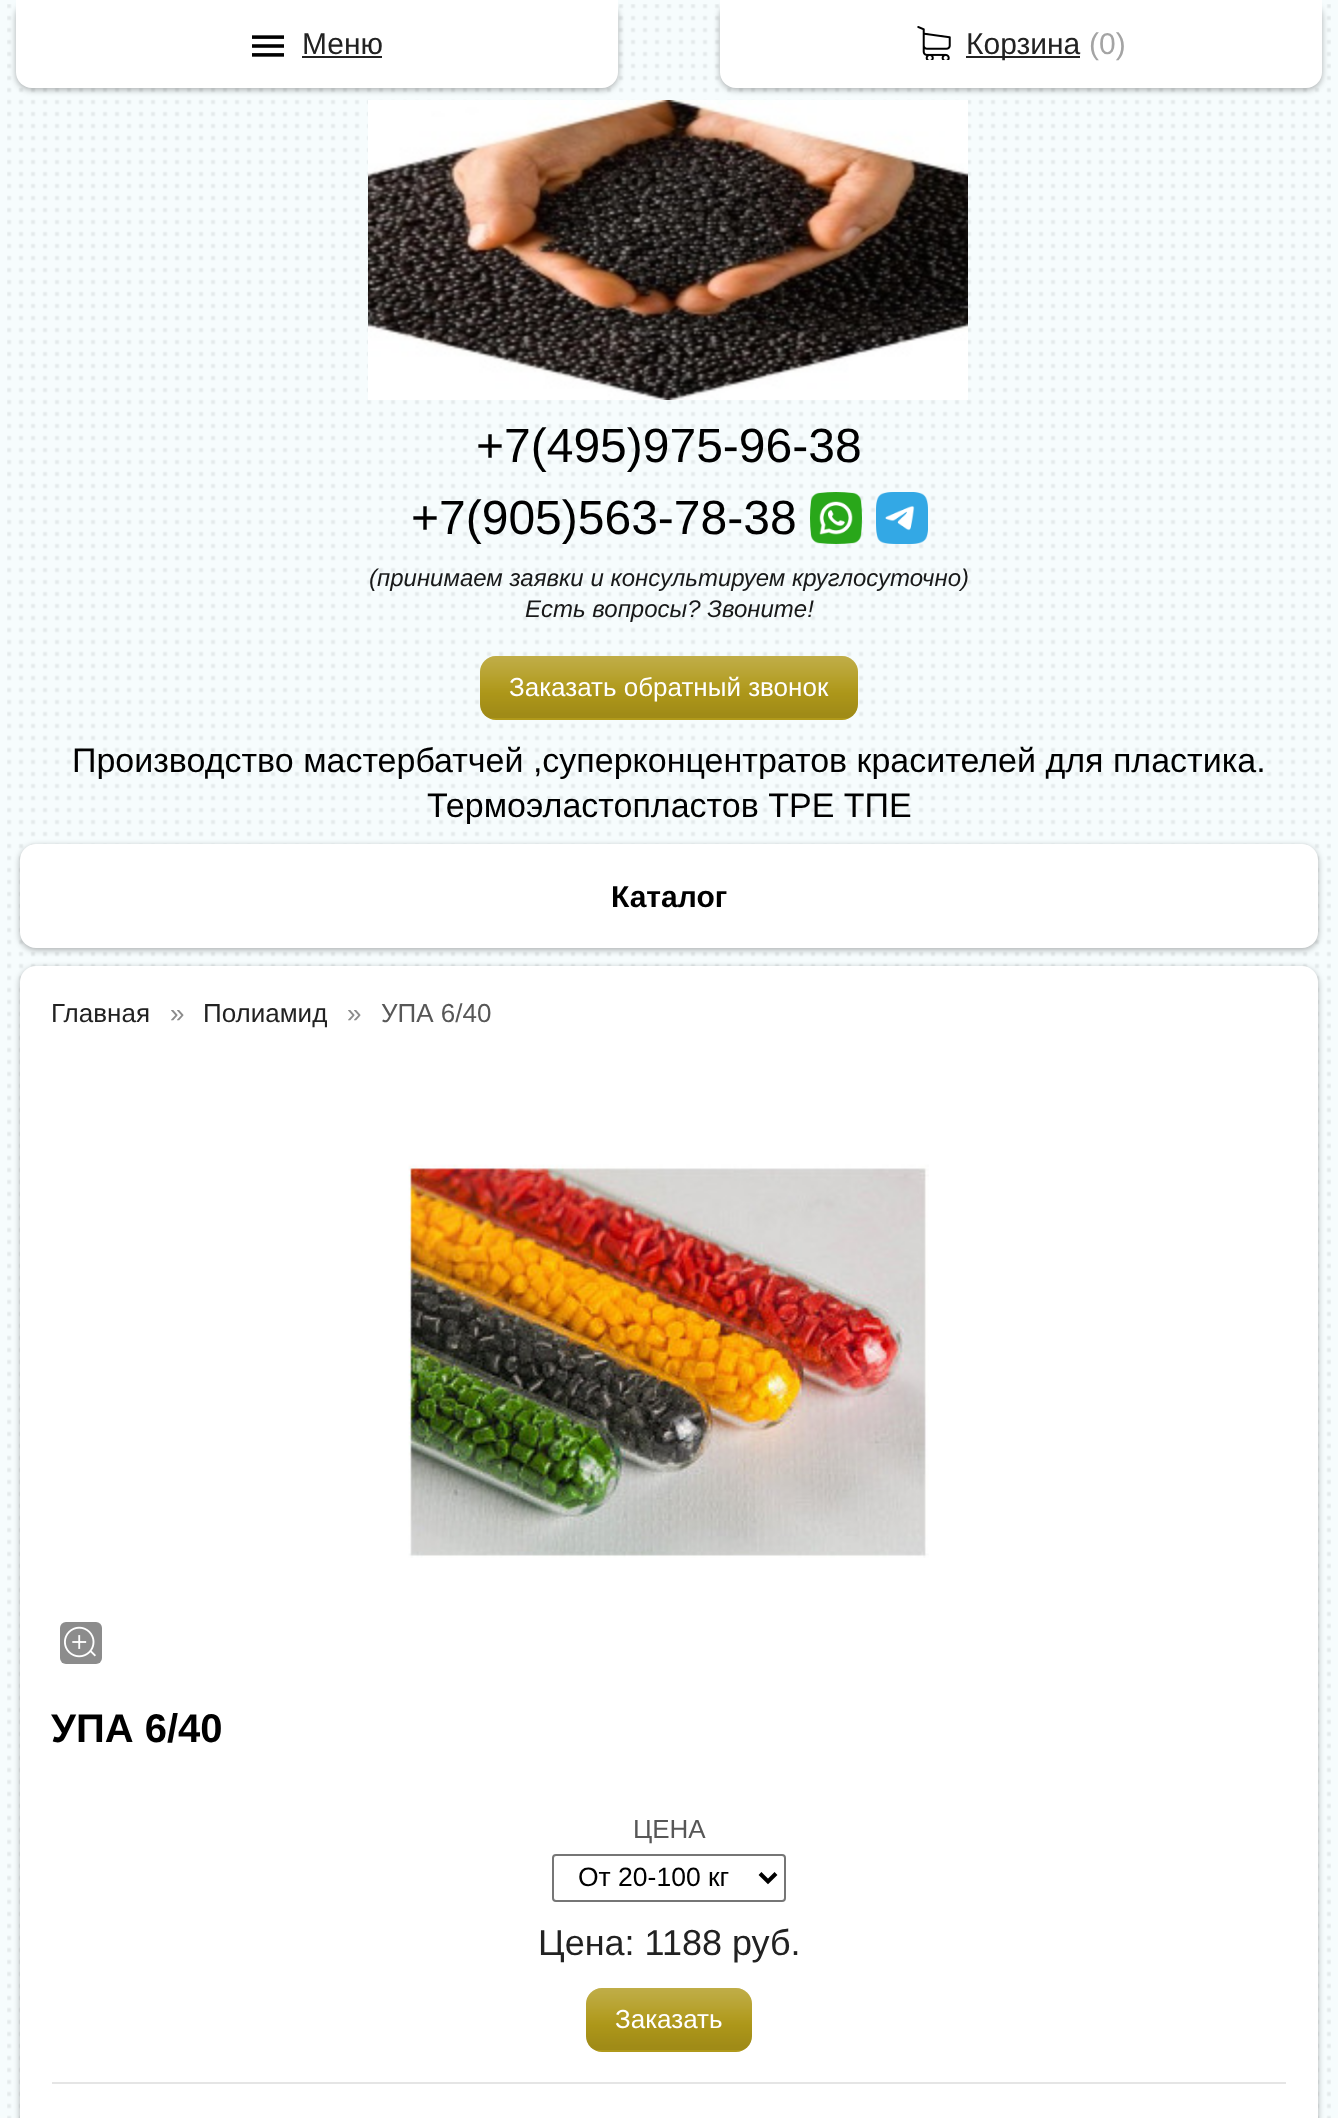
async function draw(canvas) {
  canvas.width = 1338
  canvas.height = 2118
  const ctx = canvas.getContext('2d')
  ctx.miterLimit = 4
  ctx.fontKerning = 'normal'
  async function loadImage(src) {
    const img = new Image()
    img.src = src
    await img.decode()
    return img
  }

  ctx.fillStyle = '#f6fcfd'
  ctx.fillRect(0, 0, 1338, 2118)
  ctx.drawImage(await loadImage('image0.png'), 7, 4, 1324, 2114)
  ctx.fillStyle = '#0000004d'
  ctx.filter = 'blur(3px)'
  ctx.beginPath()
  ctx.roundRect(16, 2, 602, 88, 16)
  ctx.fill()
  ctx.filter = 'none'
  ctx.fillStyle = '#fff'
  ctx.beginPath()
  ctx.roundRect(16, 0, 602, 88, [0, 0, 16, 16])
  ctx.fill()
  ctx.drawImage(await loadImage('image1.png'), 252, 35, 32, 22)
  ctx.font = '30px Liberation Sans'
  ctx.fillStyle = '#222'
  ctx.fillText('Меню', 302, 54)
  ctx.fillRect(302, 56, 80, 2)
  ctx.fillStyle = '#0000004d'
  ctx.filter = 'blur(3px)'
  ctx.beginPath()
  ctx.roundRect(720, 2, 602, 88, 16)
  ctx.fill()
  ctx.filter = 'none'
  ctx.fillStyle = '#fff'
  ctx.beginPath()
  ctx.roundRect(720, 0, 602, 88, [0, 0, 16, 16])
  ctx.fill()
  ctx.drawImage(await loadImage('image2.png'), 917, 26, 34, 34)
  ctx.fillStyle = '#222'
  ctx.fillRect(966, 56, 114, 2)
  ctx.fillText('Корзина', 966, 54)
  ctx.fillStyle = '#a4a4a4'
  ctx.fillText('(0)', 1089, 54)
  ctx.drawImage(await loadImage('image3.png'), 368, 100, 600, 300)
  ctx.font = '48px Liberation Sans'
  ctx.fillStyle = '#000'
  ctx.fillText('+7(495)975-96-38', 476, 462)
  ctx.fillText('+7(905)563-78-38', 411, 534)
  ctx.drawImage(await loadImage('image4.png'), 810, 492, 52, 52)
  ctx.drawImage(await loadImage('image5.png'), 876, 492, 52, 52)
  ctx.font = 'italic 24px Liberation Sans'
  ctx.fillStyle = '#181919'
  ctx.fillText('(принимаем заявки и консультируем круглосуточно)', 369, 586)
  ctx.fillText('Есть вопросы? Звоните!', 525, 617)
  ctx.fillStyle = '#b0991a'
  ctx.beginPath()
  ctx.roundRect(480, 656, 378, 64, 16)
  ctx.fill()
  ctx.drawImage(await loadImage('image6.png'), 480, 656, 378, 62)
  ctx.font = '26px Liberation Sans'
  ctx.fillStyle = '#fff'
  ctx.fillText('Заказать обратный звонок', 509, 696)
  ctx.font = '34px Liberation Sans'
  ctx.fillStyle = '#000'
  ctx.fillText('Производство мастербатчей ,суперконцентратов красителей для пластика.', 72, 772)
  ctx.fillText('Термоэластопластов TPE ТПЕ', 427, 817)
  ctx.fillStyle = '#0000004d'
  ctx.filter = 'blur(3px)'
  ctx.beginPath()
  ctx.roundRect(20, 846, 1298, 104, 16)
  ctx.fill()
  ctx.filter = 'none'
  ctx.fillStyle = '#fff'
  ctx.beginPath()
  ctx.roundRect(20, 844, 1298, 104, 16)
  ctx.fill()
  ctx.font = 'bold 30px Liberation Sans'
  ctx.fillStyle = '#000'
  ctx.fillText('Каталог', 611, 907)
  ctx.fillStyle = '#0000004d'
  ctx.filter = 'blur(3px)'
  ctx.beginPath()
  ctx.roundRect(20, 968, 1298, 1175, 16)
  ctx.fill()
  ctx.filter = 'none'
  ctx.fillStyle = '#fff'
  ctx.beginPath()
  ctx.roundRect(20, 966, 1298, 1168, 16)
  ctx.fill()
  ctx.font = '26px Liberation Sans'
  ctx.fillStyle = '#222'
  ctx.fillText('Главная', 51, 1022)
  ctx.fillStyle = '#8c8c8c'
  ctx.fillText('»', 170, 1022)
  ctx.fillStyle = '#222'
  ctx.fillText('Полиамид', 203, 1022)
  ctx.fillStyle = '#8c8c8c'
  ctx.fillText('»', 347, 1022)
  ctx.fillStyle = '#575757'
  ctx.fillText('УПА 6/40', 381, 1022)
  ctx.drawImage(await loadImage('image7.png'), 408, 1164, 521, 394)
  ctx.fillStyle = '#8c8c8c'
  ctx.beginPath()
  ctx.roundRect(60, 1622, 42, 42, 6)
  ctx.fill()
  ctx.drawImage(await loadImage('image8.png'), 64, 1626, 32, 32)
  ctx.font = 'bold 40px Liberation Sans'
  ctx.fillStyle = '#000'
  ctx.fillText('УПА 6/40', 51, 1742)
  ctx.font = '26px Liberation Sans'
  ctx.fillStyle = '#575757'
  ctx.fillText('ЦЕНА', 633, 1838)
  ctx.beginPath()
  ctx.roundRect(553, 1855, 232, 46, 3)
  ctx.strokeStyle = '#767676'
  ctx.lineWidth = 2
  ctx.stroke()
  ctx.beginPath()
  ctx.moveTo(760, 1873.5)
  ctx.lineTo(768, 1881.5)
  ctx.lineTo(776, 1873.5)
  ctx.strokeStyle = '#000'
  ctx.lineWidth = 4
  ctx.stroke()
  ctx.font = '26.5px Liberation Sans'
  ctx.fillStyle = '#000'
  ctx.fillText('От 20-100 кг', 578, 1886)
  ctx.font = '36px Liberation Sans'
  ctx.fillStyle = '#222'
  ctx.fillText('Цена: 1188 руб.', 538, 1955)
  ctx.fillStyle = '#b0991a'
  ctx.beginPath()
  ctx.roundRect(586, 1988, 166, 64, 16)
  ctx.fill()
  ctx.drawImage(await loadImage('image9.png'), 586, 1988, 166, 62)
  ctx.font = '26px Liberation Sans'
  ctx.fillStyle = '#fff'
  ctx.fillText('Заказать', 615, 2028)
  ctx.fillStyle = '#e5e5e5'
  ctx.fillRect(52, 2082, 1234, 2)
}

draw(document.querySelector('canvas'))
